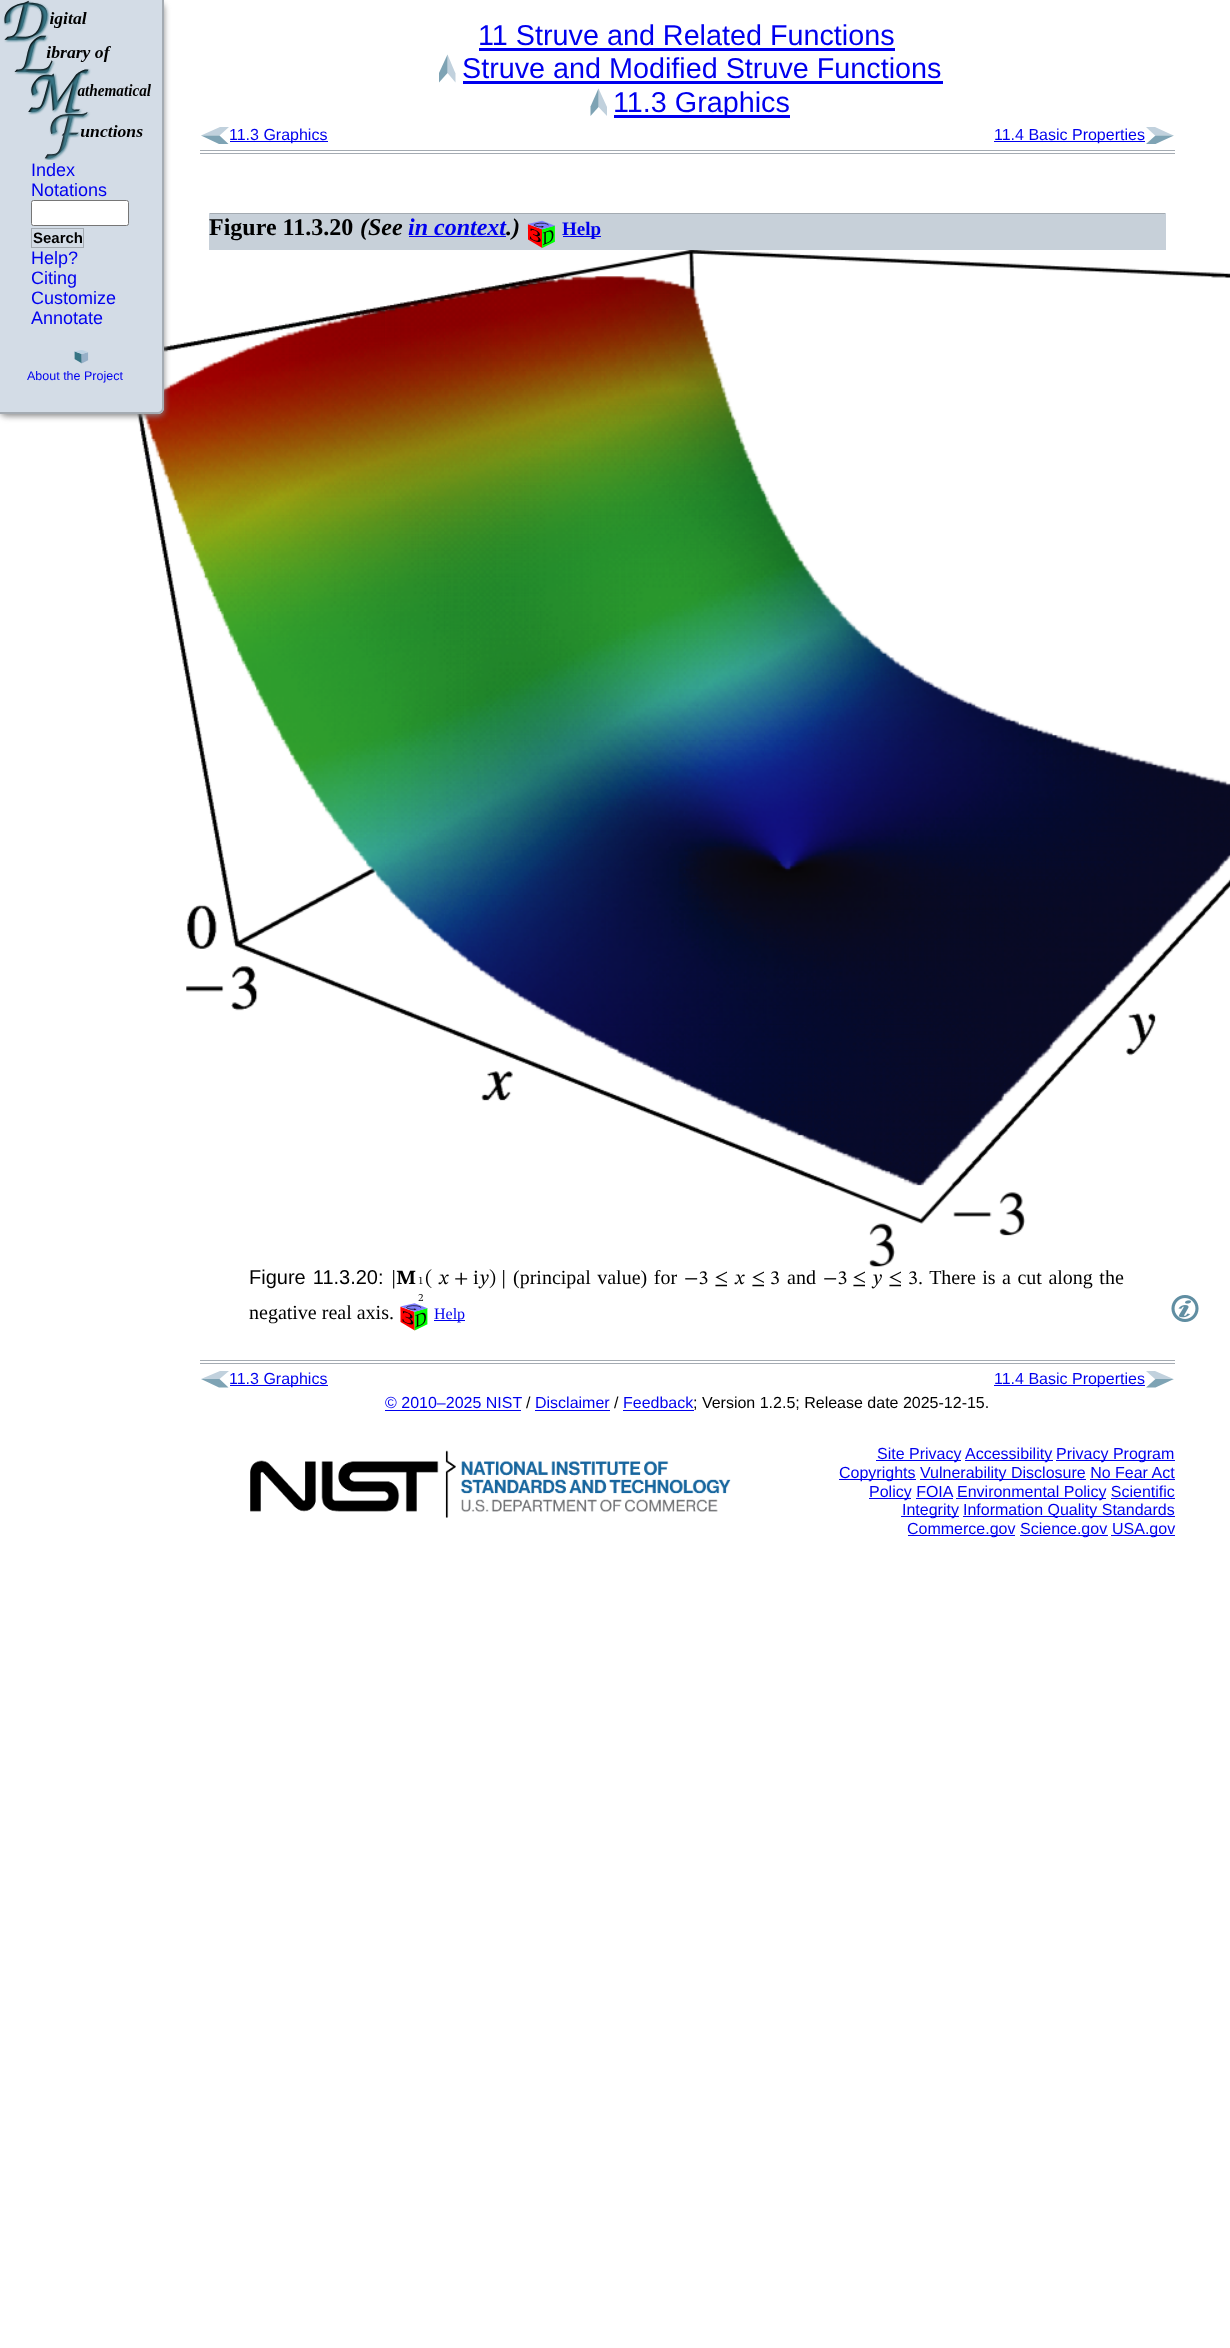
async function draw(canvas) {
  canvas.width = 1230
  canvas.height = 2348
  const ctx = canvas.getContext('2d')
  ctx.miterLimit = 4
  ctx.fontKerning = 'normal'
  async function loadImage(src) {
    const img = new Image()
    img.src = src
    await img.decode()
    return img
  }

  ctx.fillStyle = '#fff'
  ctx.fillRect(0, 0, 1230, 2348)
  ctx.drawImage(await loadImage('image3.png'), 137, 250, 1093, 1017)
  ctx.fillStyle = '#888'
  ctx.filter = 'blur(3px)'
  ctx.beginPath()
  ctx.roundRect(0, 3, 164, 413, 6)
  ctx.fill()
  ctx.filter = 'none'
  ctx.fillStyle = '#d3dce6'
  ctx.beginPath()
  ctx.roundRect(0, 0, 164, 414, [0, 0, 6, 0])
  ctx.fill()
  ctx.fillStyle = '#a4abb2'
  ctx.beginPath()
  ctx.moveTo(0, 0)
  ctx.lineTo(164, 0)
  ctx.lineTo(164, 408)
  ctx.bezierCurveTo(164, 411, 161, 414, 158, 414)
  ctx.lineTo(0, 414)
  ctx.closePath()
  ctx.moveTo(0, 0)
  ctx.lineTo(162, 0)
  ctx.lineTo(162, 408)
  ctx.bezierCurveTo(162, 410, 160, 412, 158, 412)
  ctx.lineTo(0, 412)
  ctx.closePath()
  ctx.fill('evenodd')
  ctx.drawImage(await loadImage('image0.png'), 3, 0, 148, 160)
  ctx.font = '18px Liberation Sans'
  ctx.fillStyle = '#00e'
  ctx.fillText('Index', 31, 176)
  ctx.fillText('Notations', 31, 196)
  ctx.fillStyle = '#fff'
  ctx.beginPath()
  ctx.roundRect(31.5, 200.5, 97, 25, 2)
  ctx.fill()
  ctx.strokeStyle = '#767676'
  ctx.stroke()
  ctx.strokeStyle = '#a4abb2'
  ctx.strokeRect(31.5, 228.5, 52, 19)
  ctx.font = 'bold 15px Liberation Sans'
  ctx.fillStyle = '#000'
  ctx.fillText('Search', 33, 243)
  ctx.font = '18px Liberation Sans'
  ctx.fillStyle = '#00e'
  ctx.fillText('Help?', 31, 264)
  ctx.fillText('Citing', 31, 284)
  ctx.fillText('Customize', 31, 304)
  ctx.fillText('Annotate', 31, 324)
  ctx.drawImage(await loadImage('image1.png'), 74, 350, 15, 14)
  ctx.font = '12.5px Liberation Sans'
  ctx.fillText('About the Project', 27, 380)
  ctx.fillStyle = '#a4abb2'
  ctx.fillRect(200, 150, 975, 1)
  ctx.fillRect(200, 153, 975, 1)
  ctx.font = '28.75px Liberation Sans'
  ctx.fillStyle = '#00e'
  ctx.fillText('11 Struve and Related Functions', 478, 45)
  ctx.fillRect(479, 48, 416, 3)
  ctx.fillStyle = '#c1d1dd'
  ctx.beginPath()
  ctx.moveTo(455.5, 73.5)
  ctx.lineTo(455.5, 82.5)
  ctx.lineTo(447.5, 73)
  ctx.lineTo(447.5, 54.5)
  ctx.closePath()
  ctx.fill()
  ctx.fillStyle = '#608ea2cf'
  ctx.beginPath()
  ctx.moveTo(439, 73)
  ctx.lineTo(439, 82.5)
  ctx.lineTo(447.5, 73)
  ctx.lineTo(447.5, 54.5)
  ctx.closePath()
  ctx.fill()
  ctx.fillStyle = '#00e'
  ctx.fillText('Struve and Modified Struve Functions', 462, 78)
  ctx.fillRect(463, 81, 480, 3)
  ctx.fillStyle = '#c1d1dd'
  ctx.beginPath()
  ctx.moveTo(607, 107)
  ctx.lineTo(607, 116)
  ctx.lineTo(598.5, 107)
  ctx.lineTo(598.5, 88.5)
  ctx.closePath()
  ctx.fill()
  ctx.fillStyle = '#608ea2cf'
  ctx.beginPath()
  ctx.moveTo(590.5, 106.5)
  ctx.lineTo(590.5, 116)
  ctx.lineTo(598.5, 107)
  ctx.lineTo(598.5, 88.5)
  ctx.closePath()
  ctx.fill()
  ctx.fillStyle = '#00e'
  ctx.fillRect(614, 115, 176, 3)
  ctx.fillText('11.3 Graphics', 613, 112)
  ctx.fillStyle = '#c1d1dd'
  ctx.beginPath()
  ctx.moveTo(220, 127)
  ctx.lineTo(229, 127)
  ctx.lineTo(219.5, 135.5)
  ctx.lineTo(201, 135.5)
  ctx.closePath()
  ctx.fill()
  ctx.fillStyle = '#7ea3b4'
  ctx.beginPath()
  ctx.moveTo(219, 144)
  ctx.lineTo(228.5, 144)
  ctx.lineTo(219.5, 135.5)
  ctx.lineTo(201, 135.5)
  ctx.closePath()
  ctx.fill()
  ctx.fillStyle = '#00e'
  ctx.fillRect(230, 141, 98, 1)
  ctx.font = '16px Liberation Sans'
  ctx.fillText('11.3 Graphics', 229, 140)
  ctx.fillRect(994, 141, 151, 1)
  ctx.fillText('11.4 Basic Properties', 994, 140)
  ctx.fillStyle = '#c1d1dd'
  ctx.beginPath()
  ctx.moveTo(1155, 127)
  ctx.lineTo(1146, 127)
  ctx.lineTo(1155, 135.5)
  ctx.lineTo(1173.5, 135.5)
  ctx.closePath()
  ctx.fill()
  ctx.fillStyle = '#7ea3b4'
  ctx.beginPath()
  ctx.moveTo(1155.5, 144)
  ctx.lineTo(1146, 144)
  ctx.lineTo(1155.5, 135.5)
  ctx.lineTo(1174, 135.5)
  ctx.closePath()
  ctx.fill()
  ctx.fillStyle = '#c7d0d9'
  ctx.fillRect(210, 214, 955, 36)
  ctx.fillStyle = '#a4abb2'
  ctx.fillRect(209, 213, 957, 1)
  ctx.fillStyle = '#c7d0d9'
  ctx.fillRect(1165, 213, 1, 37)
  ctx.fillRect(209, 213, 1, 37)
  ctx.font = 'bold 24px Liberation Serif'
  ctx.fillStyle = '#000'
  ctx.fillText('Figure 11.3.20', 209, 235)
  ctx.font = 'italic bold 24px Liberation Serif'
  ctx.fillText('(See', 360, 235)
  ctx.fillStyle = '#00e'
  ctx.fillText('in context', 408, 235)
  ctx.fillStyle = '#000'
  ctx.fillText('.)', 506, 235)
  ctx.fillStyle = '#00e'
  ctx.fillRect(409, 236, 97, 1)
  ctx.drawImage(await loadImage('image2.png'), 527, 220, 28, 28)
  ctx.fillRect(563, 236, 38, 1)
  ctx.font = 'bold 19px Liberation Serif'
  ctx.fillText('Help', 562, 235)
  ctx.wordSpacing = '1.5px'
  ctx.font = '20px Liberation Sans'
  ctx.fillStyle = '#000'
  ctx.fillText('Figure 11.3.20:', 249, 1284)
  ctx.wordSpacing = '0px'
  ctx.font = '20px STIX Two Math'
  ctx.fillText('|𝐌', 391, 1284)
  ctx.font = '11px STIX Two Math'
  ctx.fillText('1', 418, 1284)
  ctx.fillText('2', 418, 1301)
  ctx.font = '20px STIX Two Math'
  ctx.fillText('(', 425, 1284)
  ctx.fillText('𝑥 + i𝑦)', 438, 1284)
  ctx.fillText('|', 501, 1284)
  ctx.wordSpacing = '1.5px'
  ctx.font = '20px Liberation Serif'
  ctx.fillText('(principal value) for', 513, 1284)
  ctx.wordSpacing = '0px'
  ctx.font = '20px STIX Two Math'
  ctx.fillText('−3', 684, 1284)
  ctx.fillText('≤', 714, 1284)
  ctx.fillText('𝑥', 734, 1284)
  ctx.fillText('≤', 751, 1284)
  ctx.fillText('3', 770, 1284)
  ctx.font = '20px Liberation Serif'
  ctx.fillText('and', 787, 1284)
  ctx.font = '20px STIX Two Math'
  ctx.fillText('−3', 823, 1284)
  ctx.fillText('≤', 852, 1284)
  ctx.fillText('𝑦', 872, 1284)
  ctx.fillText('≤', 888, 1284)
  ctx.fillText('3', 908, 1284)
  ctx.wordSpacing = '1.5px'
  ctx.font = '20px Liberation Serif'
  ctx.fillText('. There is a cut along the', 918, 1284)
  ctx.wordSpacing = '0px'
  ctx.fillText('negative real axis.', 249, 1319)
  ctx.drawImage(await loadImage('image4.png'), 400, 1303, 28, 28)
  ctx.fillStyle = '#00e'
  ctx.fillRect(434, 1320, 31, 1)
  ctx.font = '16px Liberation Serif'
  ctx.fillText('Help', 434, 1319)
  ctx.drawImage(await loadImage('image5.png'), 1171, 1295, 28, 27)
  ctx.fillStyle = '#a4abb2'
  ctx.fillRect(200, 1360, 975, 1)
  ctx.fillRect(200, 1363, 975, 1)
  ctx.fillStyle = '#c1d1dd'
  ctx.beginPath()
  ctx.moveTo(220, 1371)
  ctx.lineTo(229, 1371)
  ctx.lineTo(219.5, 1379)
  ctx.lineTo(201, 1379)
  ctx.closePath()
  ctx.fill()
  ctx.fillStyle = '#7ea3b4'
  ctx.beginPath()
  ctx.moveTo(219, 1387.5)
  ctx.lineTo(228.5, 1387.5)
  ctx.lineTo(219.5, 1379)
  ctx.lineTo(201, 1379)
  ctx.closePath()
  ctx.fill()
  ctx.fillStyle = '#00e'
  ctx.fillRect(230, 1385, 98, 1)
  ctx.font = '16px Liberation Sans'
  ctx.fillText('11.3 Graphics', 229, 1384)
  ctx.fillRect(994, 1385, 151, 1)
  ctx.fillText('11.4 Basic Properties', 994, 1384)
  ctx.fillStyle = '#c1d1dd'
  ctx.beginPath()
  ctx.moveTo(1155, 1371)
  ctx.lineTo(1146, 1371)
  ctx.lineTo(1155, 1379)
  ctx.lineTo(1173.5, 1379)
  ctx.closePath()
  ctx.fill()
  ctx.fillStyle = '#7ea3b4'
  ctx.beginPath()
  ctx.moveTo(1155.5, 1387.5)
  ctx.lineTo(1146, 1387.5)
  ctx.lineTo(1155.5, 1379)
  ctx.lineTo(1174, 1379)
  ctx.closePath()
  ctx.fill()
  ctx.fillStyle = '#00e'
  ctx.fillText('© 2010–2025 NIST', 385, 1408)
  ctx.fillRect(385, 1410, 136, 1)
  ctx.fillStyle = '#000'
  ctx.fillText('/', 526, 1408)
  ctx.fillStyle = '#00e'
  ctx.fillText('Disclaimer', 535, 1408)
  ctx.fillRect(535, 1410, 75, 1)
  ctx.fillStyle = '#000'
  ctx.fillText('/', 614, 1408)
  ctx.fillStyle = '#00e'
  ctx.fillText('Feedback', 623, 1408)
  ctx.fillRect(623, 1410, 71, 1)
  ctx.fillStyle = '#000'
  ctx.fillText('; Version 1.2.5; Release date 2025-12-15.', 693, 1408)
  ctx.drawImage(await loadImage('image6.png'), 250, 1450, 481, 68)
  ctx.fillStyle = '#00e'
  ctx.fillRect(876, 1460, 85, 1)
  ctx.fillText('Site Privacy', 877, 1459)
  ctx.fillRect(965, 1460, 88, 1)
  ctx.fillText('Accessibility', 965, 1459)
  ctx.fillRect(1056, 1460, 119, 1)
  ctx.fillText('Privacy Program', 1056, 1459)
  ctx.fillRect(839, 1479, 77, 1)
  ctx.fillText('Copyrights', 839, 1478)
  ctx.fillRect(920, 1479, 166, 1)
  ctx.fillText('Vulnerability Disclosure No Fear Act', 920, 1478)
  ctx.fillRect(869, 1498, 42, 1)
  ctx.fillText('Policy FOIA', 869, 1497)
  ctx.fillRect(1090, 1479, 85, 1)
  ctx.fillRect(956, 1498, 150, 1)
  ctx.fillText('Environmental Policy Scientific', 957, 1497)
  ctx.fillRect(916, 1498, 37, 1)
  ctx.fillRect(901, 1516, 58, 1)
  ctx.fillText('Integrity', 902, 1515)
  ctx.fillRect(1111, 1498, 64, 1)
  ctx.fillRect(963, 1516, 212, 1)
  ctx.fillText('Information Quality Standards', 963, 1515)
  ctx.fillRect(908, 1535, 107, 1)
  ctx.fillText('Commerce.gov', 907, 1534)
  ctx.fillRect(1020, 1535, 88, 1)
  ctx.fillText('Science.gov', 1020, 1534)
  ctx.fillRect(1111, 1535, 64, 1)
  ctx.fillText('USA.gov', 1112, 1534)
}

draw(document.querySelector('canvas'))
